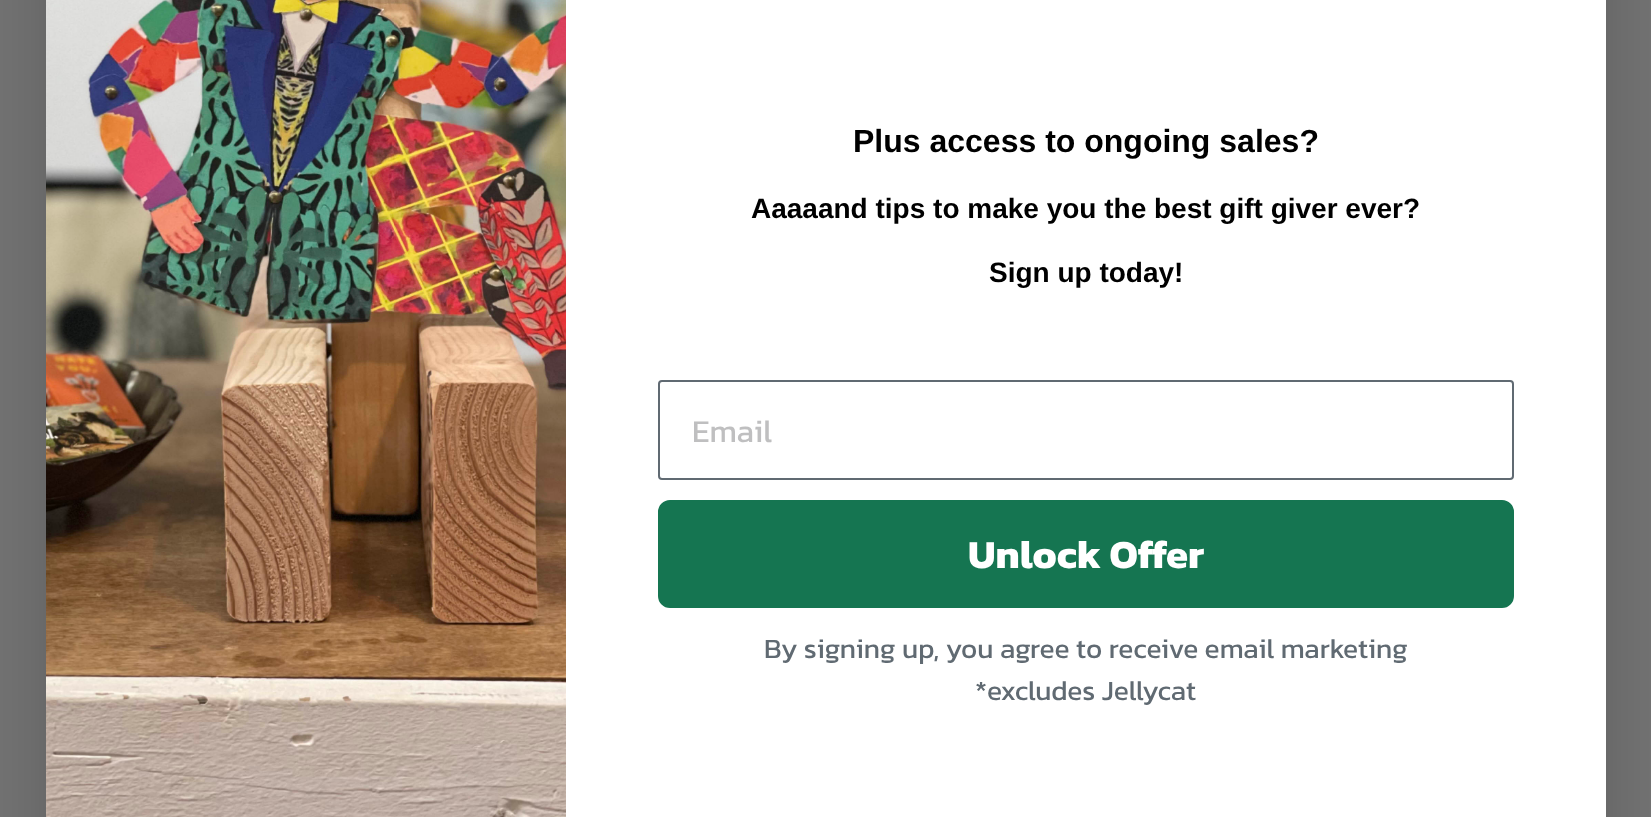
async function draw(canvas) {
  canvas.width = 1651
  canvas.height = 817
  const ctx = canvas.getContext('2d')
  ctx.miterLimit = 4
  ctx.fontKerning = 'normal'
  async function loadImage(src) {
    const img = new Image()
    img.src = src
    await img.decode()
    return img
  }

  ctx.fillStyle = '#727272'
  ctx.fillRect(0, 0, 1651, 817)
  ctx.fillStyle = '#00000026'
  ctx.filter = 'blur(30px)'
  ctx.beginPath()
  ctx.roundRect(46, -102, 1560, 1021, 12)
  ctx.fill()
  ctx.filter = 'none'
  ctx.fillStyle = '#fff'
  ctx.fillRect(566, 0, 1040, 817)
  ctx.drawImage(await loadImage('image0.png'), 46, 0, 520, 817)
  ctx.font = 'bold 32px Liberation Sans'
  ctx.fillStyle = '#000'
  ctx.fillText('Plus access to ongoing sales?', 853, 152)
  ctx.font = 'bold 28px Liberation Sans'
  ctx.fillText('Aaaaand tips to make you the best gift giver ever?', 751, 218)
  ctx.fillText('Sign up today!', 989, 282)
  ctx.beginPath()
  ctx.roundRect(659, 381, 854, 98, 3)
  ctx.strokeStyle = '#606a72'
  ctx.lineWidth = 2
  ctx.stroke()
  ctx.font = '32px Kanit'
  ctx.fillStyle = '#bfbfc0'
  ctx.fillText('Email', 692, 442)
  ctx.fillStyle = '#157551'
  ctx.beginPath()
  ctx.roundRect(664, 506, 844, 96, 6)
  ctx.fill()
  ctx.strokeStyle = '#157551'
  ctx.lineWidth = 12
  ctx.stroke()
  ctx.font = 'bold 40px Kanit'
  ctx.fillStyle = '#fff'
  ctx.fillText('Unlock Offer', 968, 568)
  ctx.font = '28px Kanit'
  ctx.fillStyle = '#606a72'
  ctx.fillText('By signing up, you agree to receive email marketing', 764, 658)
  ctx.fillText('*excludes Jellycat', 975, 700)
}

draw(document.querySelector('canvas'))
